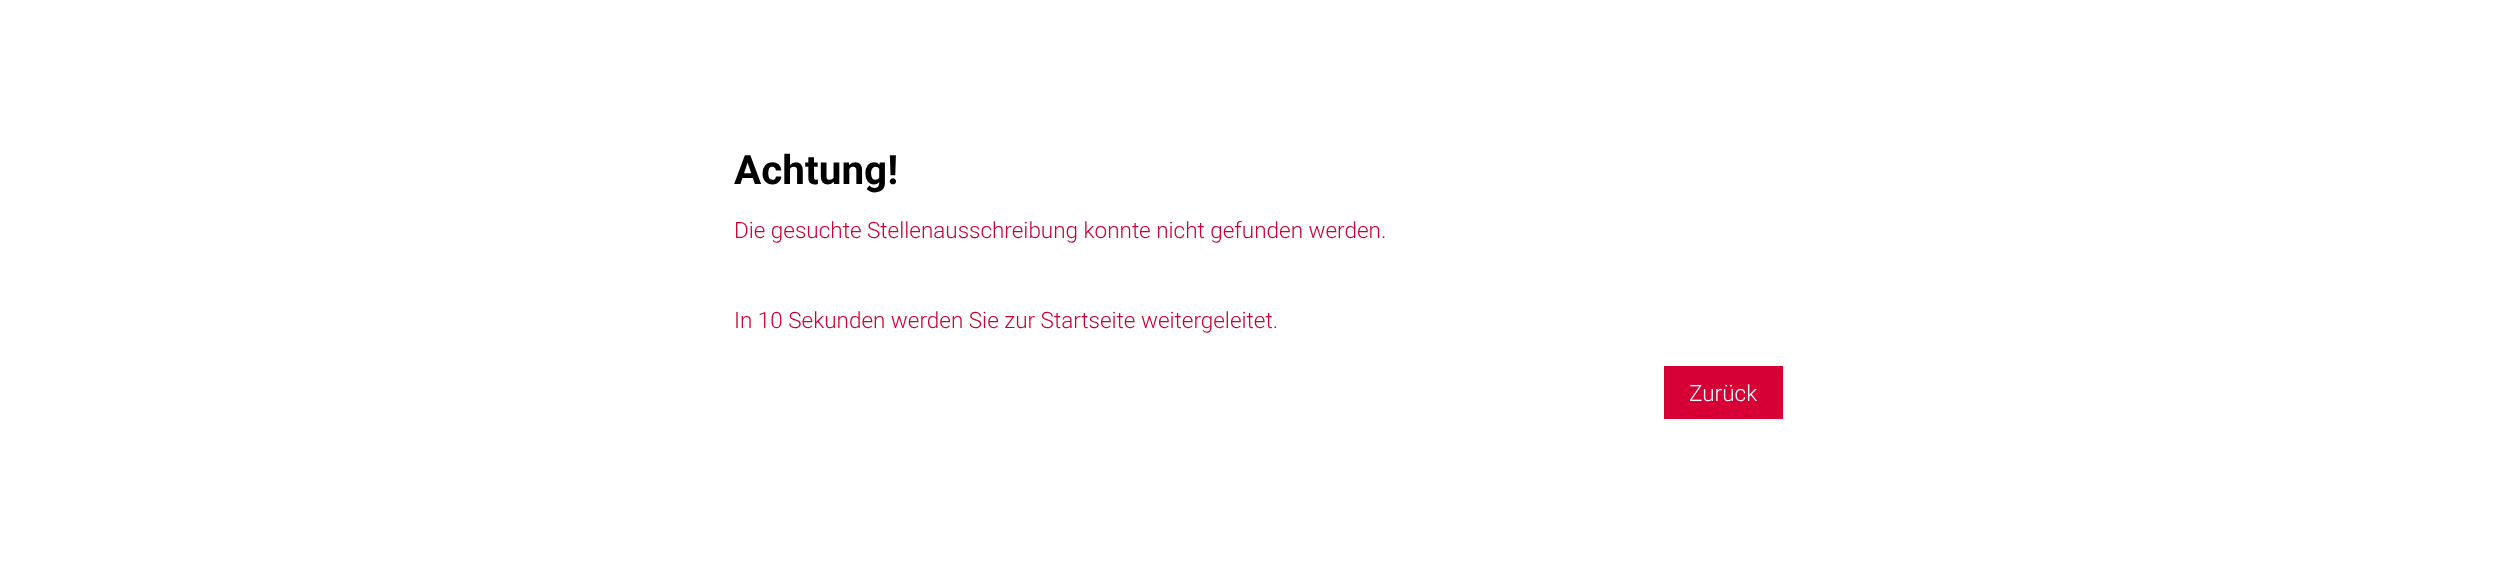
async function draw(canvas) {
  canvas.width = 2518
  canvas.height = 566
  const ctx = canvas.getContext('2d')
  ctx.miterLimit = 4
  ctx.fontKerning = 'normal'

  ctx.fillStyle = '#fff'
  ctx.fillRect(0, 0, 2518, 566)
  ctx.font = 'bold 40.5px Roboto'
  ctx.fillStyle = '#000'
  ctx.fillText('Achtung!', 734, 184)
  ctx.font = '300 22.5px Roboto'
  ctx.fillStyle = '#c03'
  ctx.fillText('Die gesuchte Stellenausschreibung konnte nicht gefunden werden.', 734, 238)
  ctx.fillText('In 10 Sekunden werden Sie zur Startseite weitergeleitet.', 734, 328)
  ctx.fillStyle = '#d70036'
  ctx.fillRect(1664, 366, 119, 53)
  ctx.fillStyle = '#fff'
  ctx.fillText('Zurück', 1689, 401)
}

draw(document.querySelector('canvas'))
